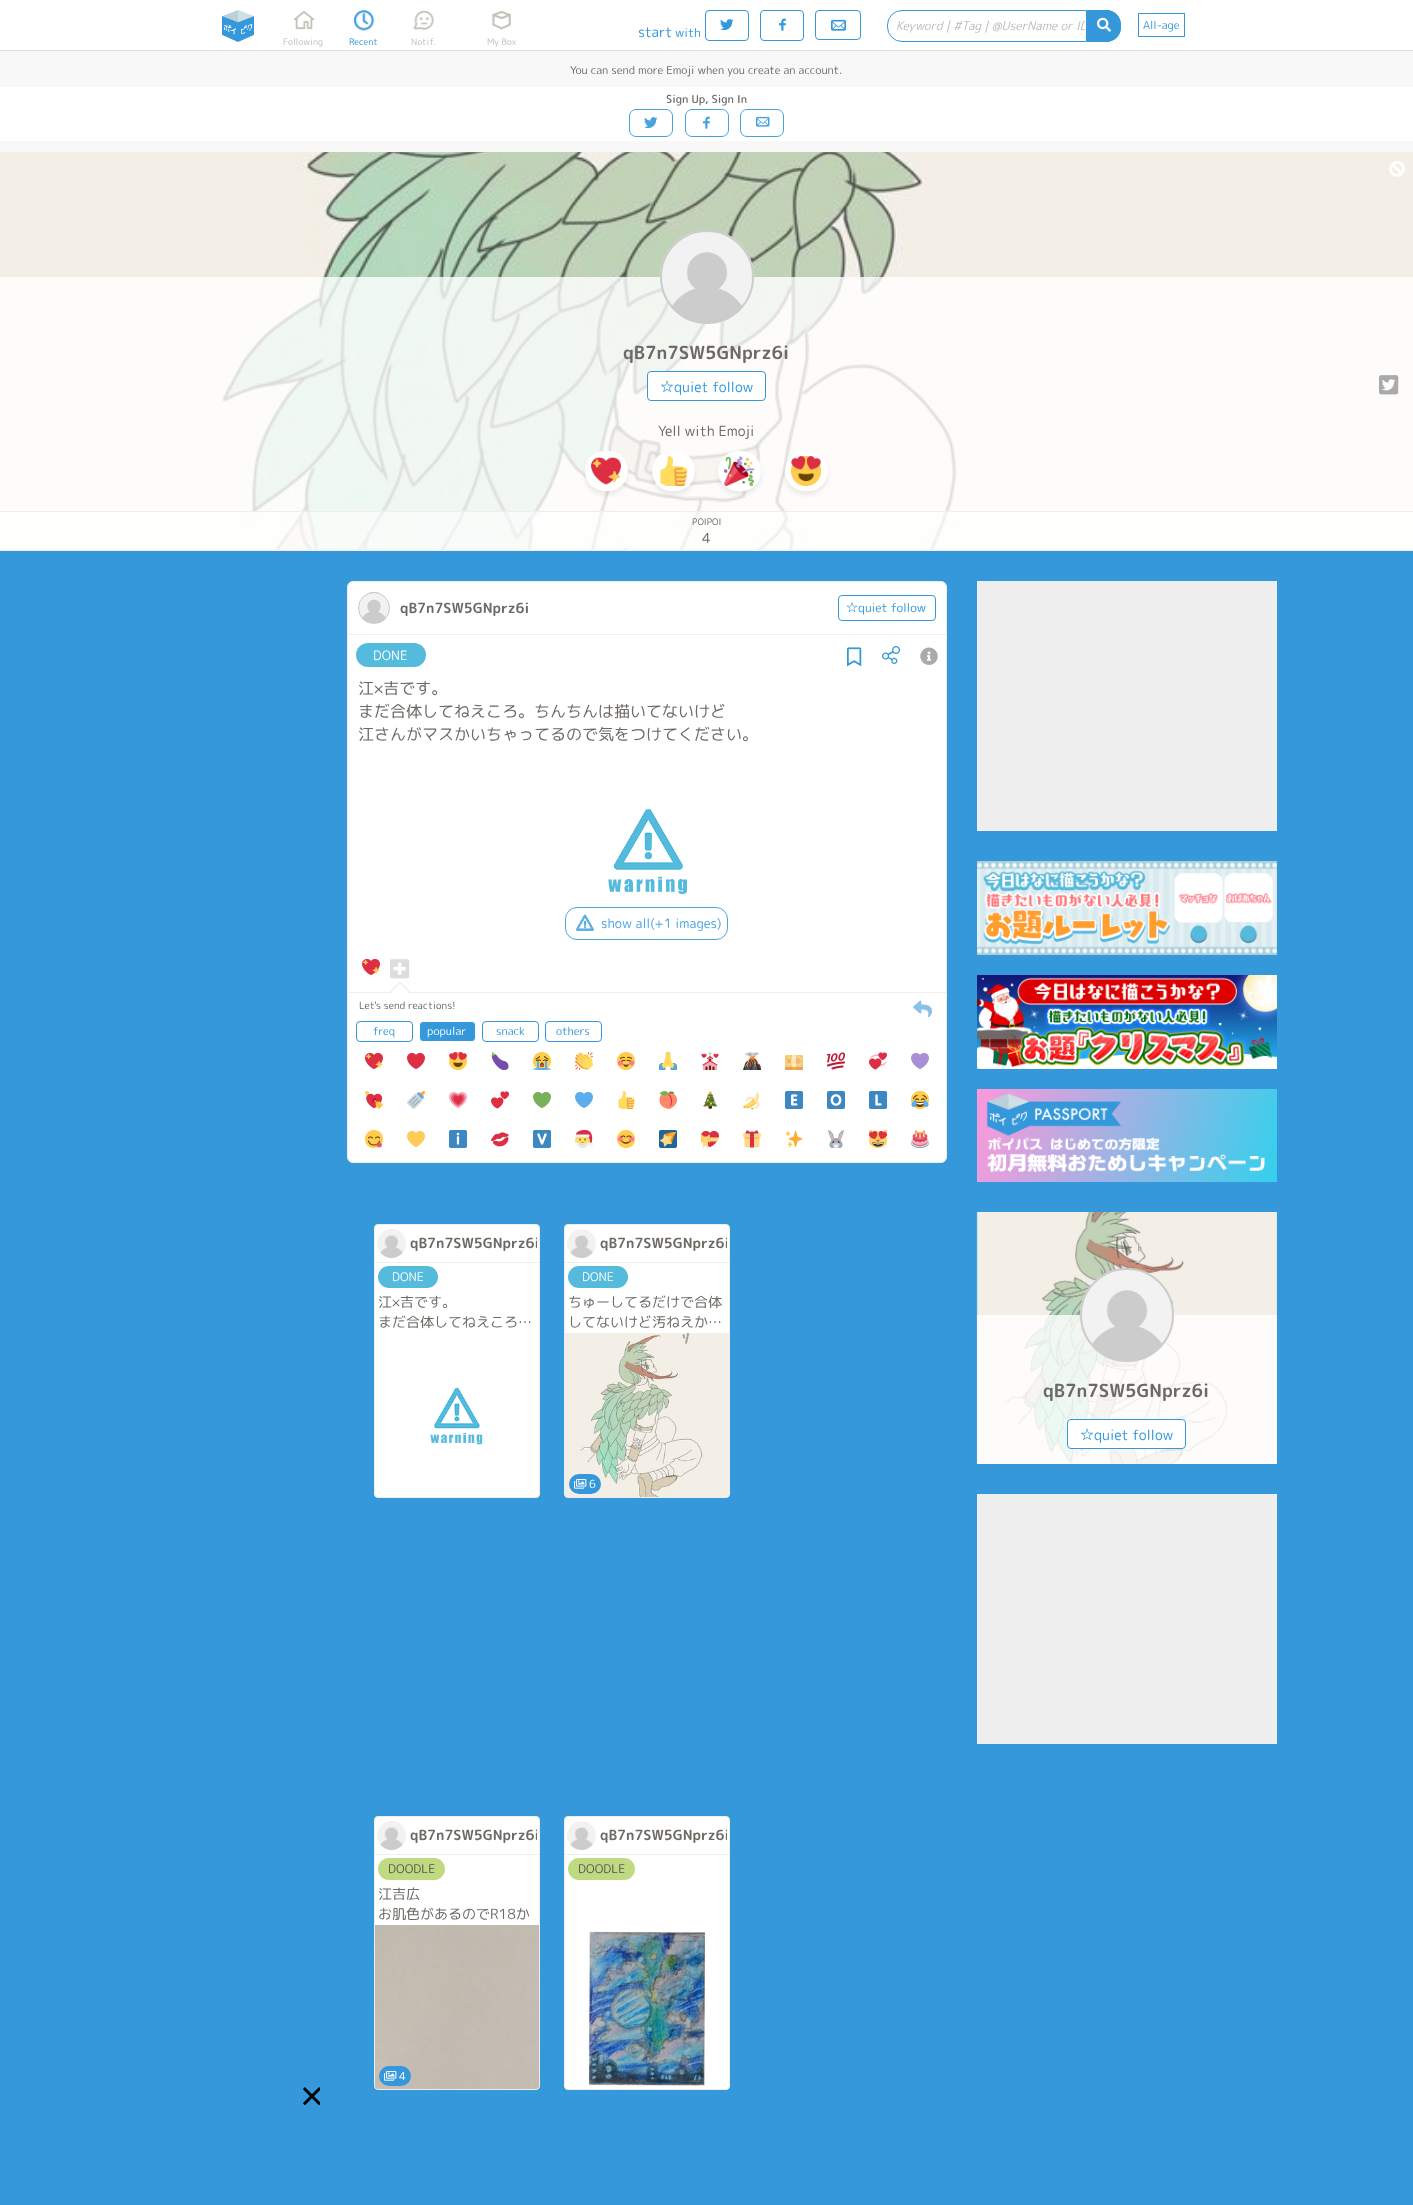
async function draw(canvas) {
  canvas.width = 1413
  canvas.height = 2205
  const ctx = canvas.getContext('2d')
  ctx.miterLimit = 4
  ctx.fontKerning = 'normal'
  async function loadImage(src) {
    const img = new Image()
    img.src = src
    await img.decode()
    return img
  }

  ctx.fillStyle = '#3498db'
  ctx.fillRect(0, 0, 1413, 2205)
  ctx.fillStyle = '#fff'
  ctx.fillRect(0, 0, 1413, 50)
  ctx.fillStyle = '#ddd'
  ctx.fillRect(0, 50, 1413, 1)
  ctx.drawImage(await loadImage('image0.png'), 222, 10, 32, 32)
  ctx.font = '14px "Rounded Mplus 1c"'
  ctx.fillStyle = '#3498db'
  ctx.fillText('start', 638, 37)
  ctx.font = '12px "Rounded Mplus 1c"'
  ctx.fillText('with', 675, 37)
  ctx.beginPath()
  ctx.roundRect(705.5, 10.5, 43, 30, 3.5)
  ctx.strokeStyle = '#3498db'
  ctx.stroke()
  ctx.drawImage(await loadImage('image1.png'), 720, 19, 14, 12)
  ctx.beginPath()
  ctx.roundRect(760.5, 10.5, 43, 30, 3.5)
  ctx.stroke()
  ctx.drawImage(await loadImage('image2.png'), 779, 18, 7, 13)
  ctx.beginPath()
  ctx.roundRect(815.5, 10.5, 45, 29, 3.5)
  ctx.stroke()
  ctx.drawImage(await loadImage('image3.png'), 831, 19, 15, 12)
  ctx.beginPath()
  ctx.roundRect(887.5, 10.5, 199, 31, [14.5, 0, 0, 14.5])
  ctx.stroke()
  ctx.save()
  ctx.beginPath()
  ctx.rect(896, 17, 189, 18)
  ctx.clip()
  ctx.font = 'italic 12px "Rounded Mplus 1c"'
  ctx.fillStyle = '#bbb'
  ctx.fillText('Keyword | #Tag | @UserName or ID', 896, 30)
  ctx.restore()
  ctx.beginPath()
  ctx.roundRect(1087, 10, 34, 32, [0, 15, 15, 0])
  ctx.fill()
  ctx.beginPath()
  ctx.moveTo(1087, 10)
  ctx.lineTo(1106, 10)
  ctx.bezierCurveTo(1114.5, 10, 1121, 16.5, 1121, 25)
  ctx.lineTo(1121, 27)
  ctx.bezierCurveTo(1121, 35.5, 1114.5, 42, 1106, 42)
  ctx.lineTo(1087, 42)
  ctx.closePath()
  ctx.moveTo(1087, 11)
  ctx.lineTo(1106, 11)
  ctx.bezierCurveTo(1113.5, 11, 1120, 17.5, 1120, 25)
  ctx.lineTo(1120, 27)
  ctx.bezierCurveTo(1120, 34.5, 1113.5, 41, 1106, 41)
  ctx.lineTo(1087, 41)
  ctx.closePath()
  ctx.fill('evenodd')
  ctx.drawImage(await loadImage('image4.png'), 1097, 17, 14, 15)
  ctx.strokeRect(1138.5, 13.5, 46, 23)
  ctx.font = '11px "Rounded Mplus 1c"'
  ctx.fillText('All-age', 1143, 29)
  ctx.drawImage(await loadImage('image5.png'), 294, 11, 21, 19)
  ctx.font = '9px "Rounded Mplus 1c"'
  ctx.fillStyle = '#c0c0b5'
  ctx.fillText('Following', 283, 45)
  ctx.drawImage(await loadImage('image6.png'), 353, 10, 22, 21)
  ctx.fillStyle = '#3498db'
  ctx.fillText('Recent', 349, 45)
  ctx.drawImage(await loadImage('image7.png'), 413, 10, 21, 21)
  ctx.fillStyle = '#c0c0b5'
  ctx.fillText('Notif.', 411, 45)
  ctx.drawImage(await loadImage('image8.png'), 491, 11, 20, 19)
  ctx.fillText('My Box', 487, 45)
  ctx.fillStyle = '#f8f8f8'
  ctx.fillRect(0, 51, 1413, 101)
  ctx.font = '11px "Rounded Mplus 1c"'
  ctx.fillStyle = '#6d6965'
  ctx.fillText('You can send more Emoji when you create an account.', 570, 74)
  ctx.fillStyle = '#fff'
  ctx.fillRect(0, 87, 1413, 54)
  ctx.font = '500 11px "Rounded Mplus 1c"'
  ctx.fillStyle = '#6d6965'
  ctx.fillText('Sign Up, Sign In', 666, 103)
  ctx.beginPath()
  ctx.roundRect(629.5, 109.5, 43, 27, 6.5)
  ctx.strokeStyle = '#48a2df'
  ctx.stroke()
  ctx.drawImage(await loadImage('image9.png'), 644, 117, 14, 12)
  ctx.beginPath()
  ctx.roundRect(685.5, 109.5, 43, 27, 6.5)
  ctx.stroke()
  ctx.drawImage(await loadImage('image10.png'), 703, 116, 7, 13)
  ctx.beginPath()
  ctx.roundRect(740.5, 109.5, 43, 27, 6.5)
  ctx.stroke()
  ctx.drawImage(await loadImage('image11.png'), 756, 116, 14, 11)
  ctx.drawImage(await loadImage('image12.png'), 0, 152, 1413, 398)
  ctx.fillStyle = '#eee'
  ctx.fillRect(0, 550, 1413, 1)
  ctx.drawImage(await loadImage('image13.png'), 1389, 161, 16, 16)
  ctx.fillStyle = '#ffffffcc'
  ctx.fillRect(0, 277, 1413, 234)
  ctx.drawImage(await loadImage('image14.png'), 660, 230, 94, 94)
  ctx.beginPath()
  ctx.arc(707, 277, 46, 0, 2 * Math.PI)
  ctx.strokeStyle = '#ccc'
  ctx.lineWidth = 2
  ctx.stroke()
  ctx.font = 'bold 18px "Rounded Mplus 1c Bold"'
  ctx.fillStyle = '#6d6965'
  ctx.fillText('qB7n7SW5GNprz6i', 623, 359)
  ctx.fillStyle = '#fff'
  ctx.beginPath()
  ctx.roundRect(647.5, 371.5, 118, 29, 3.5)
  ctx.fill()
  ctx.strokeStyle = '#3498db'
  ctx.lineWidth = 1
  ctx.stroke()
  ctx.font = '14px "Rounded Mplus 1c"'
  ctx.fillStyle = '#3498db'
  ctx.fillText('☆quiet follow', 660, 392)
  ctx.drawImage(await loadImage('image15.png'), 1379, 375, 20, 20)
  ctx.fillStyle = '#6d6965'
  ctx.fillText('Yell with Emoji', 658, 436)
  ctx.fillStyle = '#18181814'
  ctx.filter = 'blur(2px)'
  ctx.beginPath()
  ctx.roundRect(585, 455, 43, 40, 20)
  ctx.fill()
  ctx.filter = 'none'
  ctx.fillStyle = '#fff'
  ctx.beginPath()
  ctx.roundRect(585, 451, 43, 40, 20)
  ctx.fill()
  ctx.drawImage(await loadImage('image16.png'), 591, 457, 30, 28)
  ctx.fillStyle = '#18181814'
  ctx.filter = 'blur(2px)'
  ctx.beginPath()
  ctx.roundRect(652, 455, 43, 40, 20)
  ctx.fill()
  ctx.filter = 'none'
  ctx.fillStyle = '#fff'
  ctx.beginPath()
  ctx.roundRect(652, 451, 43, 40, 20)
  ctx.fill()
  ctx.drawImage(await loadImage('image17.png'), 659, 456, 29, 30)
  ctx.fillStyle = '#18181814'
  ctx.filter = 'blur(2px)'
  ctx.beginPath()
  ctx.roundRect(718, 455, 43, 40, 20)
  ctx.fill()
  ctx.filter = 'none'
  ctx.fillStyle = '#fff'
  ctx.beginPath()
  ctx.roundRect(718, 451, 43, 40, 20)
  ctx.fill()
  ctx.drawImage(await loadImage('image18.png'), 724, 456, 30, 30)
  ctx.fillStyle = '#18181814'
  ctx.filter = 'blur(2px)'
  ctx.beginPath()
  ctx.roundRect(785, 455, 43, 40, 20)
  ctx.fill()
  ctx.filter = 'none'
  ctx.fillStyle = '#fff'
  ctx.beginPath()
  ctx.roundRect(785, 451, 43, 40, 20)
  ctx.fill()
  ctx.drawImage(await loadImage('image19.png'), 791, 456, 30, 30)
  ctx.fillStyle = '#ffffffe6'
  ctx.fillRect(0, 512, 1413, 38)
  ctx.fillStyle = '#eee'
  ctx.fillRect(0, 511, 1413, 1)
  ctx.font = '9px "Rounded Mplus 1c"'
  ctx.fillStyle = '#6d6965'
  ctx.fillText('POIPOI', 692, 525)
  ctx.font = '14px "Rounded Mplus 1c"'
  ctx.fillText('4', 702, 543)
  ctx.fillStyle = '#fff'
  ctx.beginPath()
  ctx.roundRect(347.5, 581.5, 599, 581, 5.5)
  ctx.fill()
  ctx.strokeStyle = '#eee'
  ctx.stroke()
  ctx.fillStyle = '#eee'
  ctx.fillRect(348, 634, 598, 1)
  ctx.drawImage(await loadImage('image20.png'), 358, 592, 32, 32)
  ctx.beginPath()
  ctx.arc(374, 608, 15.5, 0, 2 * Math.PI)
  ctx.strokeStyle = '#ccc'
  ctx.stroke()
  ctx.font = 'bold 14px "Rounded Mplus 1c Bold"'
  ctx.fillStyle = '#6d6965'
  ctx.fillText('qB7n7SW5GNprz6i', 400, 613)
  ctx.beginPath()
  ctx.roundRect(838.5, 595.5, 97, 25, 3.5)
  ctx.strokeStyle = '#3498db'
  ctx.stroke()
  ctx.font = '12px "Rounded Mplus 1c"'
  ctx.fillStyle = '#3498db'
  ctx.fillText('☆quiet follow', 846, 612)
  ctx.fillStyle = '#5bd'
  ctx.beginPath()
  ctx.roundRect(356, 643, 70, 24, 12)
  ctx.fill()
  ctx.font = '13px "Rounded Mplus 1c"'
  ctx.fillStyle = '#fff'
  ctx.fillText('DONE', 373, 660)
  ctx.drawImage(await loadImage('image21.png'), 847, 647, 15, 20)
  ctx.drawImage(await loadImage('image22.png'), 882, 646, 18, 18)
  ctx.drawImage(await loadImage('image23.png'), 920, 647, 18, 18)
  ctx.font = '16px "Rounded Mplus 1c"'
  ctx.fillStyle = '#6d6965'
  ctx.fillText('江×吉です。', 358, 694)
  ctx.fillText('まだ合体してねえころ。ちんちんは描いてないけど', 358, 717)
  ctx.fillText('江さんがマスかいちゃってるので気をつけてください。', 358, 740)
  ctx.drawImage(await loadImage('image24.png'), 608, 809, 79, 85)
  ctx.beginPath()
  ctx.roundRect(565.5, 907.5, 162, 32, 11.5)
  ctx.strokeStyle = '#4ea5e0'
  ctx.stroke()
  ctx.drawImage(await loadImage('image25.png'), 575, 914, 19, 17)
  ctx.font = '13px "Rounded Mplus 1c"'
  ctx.fillStyle = '#4ea5e0'
  ctx.fillText('show all(+1 images)', 601, 928)
  ctx.fillStyle = '#eee'
  ctx.fillRect(348, 992, 598, 1)
  ctx.drawImage(await loadImage('image26.png'), 362, 958, 18, 17)
  ctx.drawImage(await loadImage('image27.png'), 390, 959, 20, 20)
  ctx.fillStyle = '#ddd'
  ctx.beginPath()
  ctx.moveTo(411, 993)
  ctx.lineTo(389, 993)
  ctx.lineTo(400, 982)
  ctx.closePath()
  ctx.fill()
  ctx.fillStyle = '#fff'
  ctx.beginPath()
  ctx.moveTo(410, 993)
  ctx.lineTo(390, 993)
  ctx.lineTo(400, 983)
  ctx.closePath()
  ctx.fill()
  ctx.font = '10px "Rounded Mplus 1c"'
  ctx.fillStyle = '#6d6965'
  ctx.fillText('Let\'s send reactions!', 359, 1009)
  ctx.drawImage(await loadImage('image28.png'), 913, 1000, 19, 18)
  ctx.beginPath()
  ctx.roundRect(356.5, 1021.5, 56, 20, 3.5)
  ctx.strokeStyle = '#3498db'
  ctx.stroke()
  ctx.font = '11px "Rounded Mplus 1c"'
  ctx.fillStyle = '#3498db'
  ctx.fillText('freq', 373, 1035)
  ctx.beginPath()
  ctx.roundRect(419.5, 1021.5, 56, 20, 3.5)
  ctx.fill()
  ctx.strokeStyle = '#fff'
  ctx.stroke()
  ctx.fillStyle = '#fff'
  ctx.fillText('popular', 427, 1035)
  ctx.beginPath()
  ctx.roundRect(482.5, 1021.5, 56, 20, 3.5)
  ctx.strokeStyle = '#3498db'
  ctx.stroke()
  ctx.fillStyle = '#3498db'
  ctx.fillText('snack', 496, 1035)
  ctx.beginPath()
  ctx.roundRect(545.5, 1021.5, 56, 20, 3.5)
  ctx.stroke()
  ctx.fillText('others', 556, 1035)
  ctx.drawImage(await loadImage('image26.png'), 365, 1052, 18, 17)
  ctx.drawImage(await loadImage('image29.png'), 407, 1052, 18, 17)
  ctx.drawImage(await loadImage('image30.png'), 449, 1052, 18, 18)
  ctx.drawImage(await loadImage('image31.png'), 491, 1052, 18, 18)
  ctx.drawImage(await loadImage('image32.png'), 533, 1052, 18, 18)
  ctx.drawImage(await loadImage('image33.png'), 575, 1052, 18, 18)
  ctx.drawImage(await loadImage('image34.png'), 617, 1052, 18, 18)
  ctx.drawImage(await loadImage('image35.png'), 659, 1052, 18, 18)
  ctx.drawImage(await loadImage('image36.png'), 701, 1052, 18, 18)
  ctx.drawImage(await loadImage('image37.png'), 743, 1052, 18, 18)
  ctx.drawImage(await loadImage('image38.png'), 785, 1055, 18, 15)
  ctx.drawImage(await loadImage('image39.png'), 827, 1052, 18, 18)
  ctx.drawImage(await loadImage('image40.png'), 869, 1052, 18, 18)
  ctx.drawImage(await loadImage('image41.png'), 911, 1052, 18, 17)
  ctx.drawImage(await loadImage('image42.png'), 365, 1091, 18, 18)
  ctx.drawImage(await loadImage('image43.png'), 407, 1091, 18, 18)
  ctx.drawImage(await loadImage('image44.png'), 449, 1092, 18, 16)
  ctx.drawImage(await loadImage('image45.png'), 491, 1091, 18, 18)
  ctx.drawImage(await loadImage('image46.png'), 533, 1091, 18, 17)
  ctx.drawImage(await loadImage('image47.png'), 575, 1091, 18, 17)
  ctx.drawImage(await loadImage('image48.png'), 618, 1091, 17, 18)
  ctx.drawImage(await loadImage('image49.png'), 659, 1091, 18, 18)
  ctx.drawImage(await loadImage('image50.png'), 703, 1091, 14, 18)
  ctx.drawImage(await loadImage('image51.png'), 743, 1091, 17, 18)
  ctx.drawImage(await loadImage('image52.png'), 785, 1091, 18, 18)
  ctx.drawImage(await loadImage('image53.png'), 827, 1091, 18, 18)
  ctx.drawImage(await loadImage('image54.png'), 869, 1091, 18, 18)
  ctx.drawImage(await loadImage('image55.png'), 911, 1091, 18, 18)
  ctx.drawImage(await loadImage('image56.png'), 365, 1130, 18, 18)
  ctx.drawImage(await loadImage('image57.png'), 407, 1130, 18, 17)
  ctx.drawImage(await loadImage('image58.png'), 449, 1130, 18, 18)
  ctx.drawImage(await loadImage('image59.png'), 491, 1132, 18, 15)
  ctx.drawImage(await loadImage('image60.png'), 533, 1130, 18, 18)
  ctx.drawImage(await loadImage('image61.png'), 575, 1130, 18, 18)
  ctx.drawImage(await loadImage('image62.png'), 617, 1130, 18, 18)
  ctx.drawImage(await loadImage('image63.png'), 659, 1130, 18, 18)
  ctx.drawImage(await loadImage('image64.png'), 701, 1130, 18, 18)
  ctx.drawImage(await loadImage('image65.png'), 743, 1130, 18, 18)
  ctx.drawImage(await loadImage('image66.png'), 785, 1131, 18, 17)
  ctx.drawImage(await loadImage('image67.png'), 828, 1130, 16, 18)
  ctx.drawImage(await loadImage('image68.png'), 869, 1130, 18, 18)
  ctx.drawImage(await loadImage('image69.png'), 911, 1130, 18, 18)
  ctx.fillStyle = '#fff'
  ctx.beginPath()
  ctx.roundRect(374.5, 1224.5, 165, 273, 3.5)
  ctx.fill()
  ctx.strokeStyle = '#eee'
  ctx.stroke()
  ctx.fillStyle = '#eee'
  ctx.fillRect(375, 1262, 164, 1)
  ctx.drawImage(await loadImage('image70.png'), 377, 1229, 29, 29)
  ctx.save()
  ctx.beginPath()
  ctx.rect(410, 1233, 127, 20)
  ctx.clip()
  ctx.font = 'bold 14px "Rounded Mplus 1c Bold"'
  ctx.fillStyle = '#6d6965'
  ctx.fillText('qB7n7SW5GNprz6i', 410, 1248)
  ctx.restore()
  ctx.fillStyle = '#5bd'
  ctx.beginPath()
  ctx.roundRect(378, 1266, 60, 22, 11)
  ctx.fill()
  ctx.font = '12px "Rounded Mplus 1c"'
  ctx.fillStyle = '#fff'
  ctx.fillText('DONE', 392, 1281)
  ctx.font = '14px "Rounded Mplus 1c"'
  ctx.fillStyle = '#6d6965'
  ctx.fillText('江×吉です。', 378, 1307)
  ctx.fillText('まだ合体してねえころ…', 378, 1327)
  ctx.drawImage(await loadImage('image71.png'), 375, 1387, 164, 110)
  ctx.fillStyle = '#fff'
  ctx.beginPath()
  ctx.roundRect(564.5, 1224.5, 165, 273, 3.5)
  ctx.fill()
  ctx.stroke()
  ctx.fillStyle = '#eee'
  ctx.fillRect(565, 1262, 164, 1)
  ctx.drawImage(await loadImage('image70.png'), 567, 1229, 29, 29)
  ctx.save()
  ctx.beginPath()
  ctx.rect(600, 1233, 127, 20)
  ctx.clip()
  ctx.font = 'bold 14px "Rounded Mplus 1c Bold"'
  ctx.fillStyle = '#6d6965'
  ctx.fillText('qB7n7SW5GNprz6i', 600, 1248)
  ctx.restore()
  ctx.fillStyle = '#5bd'
  ctx.beginPath()
  ctx.roundRect(568, 1266, 60, 22, 11)
  ctx.fill()
  ctx.font = '12px "Rounded Mplus 1c"'
  ctx.fillStyle = '#fff'
  ctx.fillText('DONE', 582, 1281)
  ctx.font = '14px "Rounded Mplus 1c"'
  ctx.fillStyle = '#6d6965'
  ctx.fillText('ちゅーしてるだけで合体', 568, 1307)
  ctx.fillText('してないけど汚ねえか…', 568, 1327)
  ctx.drawImage(await loadImage('image72.png'), 565, 1333, 164, 164)
  ctx.fillStyle = '#3498db'
  ctx.beginPath()
  ctx.roundRect(569, 1474, 32, 20, 10)
  ctx.fill()
  ctx.drawImage(await loadImage('image73.png'), 574, 1479, 13, 10)
  ctx.font = '11px "Rounded Mplus 1c"'
  ctx.fillStyle = '#fff'
  ctx.fillText('6', 589, 1488)
  ctx.beginPath()
  ctx.roundRect(374.5, 1816.5, 165, 273, 3.5)
  ctx.fill()
  ctx.stroke()
  ctx.fillStyle = '#eee'
  ctx.fillRect(375, 1854, 164, 1)
  ctx.drawImage(await loadImage('image70.png'), 377, 1821, 29, 29)
  ctx.save()
  ctx.beginPath()
  ctx.rect(410, 1825, 127, 20)
  ctx.clip()
  ctx.font = 'bold 14px "Rounded Mplus 1c Bold"'
  ctx.fillStyle = '#6d6965'
  ctx.fillText('qB7n7SW5GNprz6i', 410, 1840)
  ctx.restore()
  ctx.fillStyle = '#bfda80'
  ctx.beginPath()
  ctx.roundRect(378, 1858, 67, 22, 11)
  ctx.fill()
  ctx.font = '12px "Rounded Mplus 1c"'
  ctx.fillStyle = '#555'
  ctx.fillText('DOODLE', 388, 1873)
  ctx.font = '14px "Rounded Mplus 1c"'
  ctx.fillStyle = '#6d6965'
  ctx.fillText('江吉広', 378, 1899)
  ctx.fillText('お肌色があるのでR18か', 378, 1919)
  ctx.drawImage(await loadImage('image74.png'), 375, 1925, 164, 164)
  ctx.fillStyle = '#3498db'
  ctx.beginPath()
  ctx.roundRect(379, 2066, 32, 20, 10)
  ctx.fill()
  ctx.drawImage(await loadImage('image73.png'), 384, 2071, 13, 10)
  ctx.font = '11px "Rounded Mplus 1c"'
  ctx.fillStyle = '#fff'
  ctx.fillText('4', 399, 2080)
  ctx.beginPath()
  ctx.roundRect(564.5, 1816.5, 165, 273, 3.5)
  ctx.fill()
  ctx.stroke()
  ctx.fillStyle = '#eee'
  ctx.fillRect(565, 1854, 164, 1)
  ctx.drawImage(await loadImage('image70.png'), 567, 1821, 29, 29)
  ctx.save()
  ctx.beginPath()
  ctx.rect(600, 1825, 127, 20)
  ctx.clip()
  ctx.font = 'bold 14px "Rounded Mplus 1c Bold"'
  ctx.fillStyle = '#6d6965'
  ctx.fillText('qB7n7SW5GNprz6i', 600, 1840)
  ctx.restore()
  ctx.fillStyle = '#bfda80'
  ctx.beginPath()
  ctx.roundRect(568, 1858, 67, 22, 11)
  ctx.fill()
  ctx.font = '12px "Rounded Mplus 1c"'
  ctx.fillStyle = '#555'
  ctx.fillText('DOODLE', 578, 1873)
  ctx.drawImage(await loadImage('image75.png'), 565, 1931, 164, 158)
  ctx.fillStyle = '#eee'
  ctx.fillRect(977, 581, 300, 250)
  ctx.drawImage(await loadImage('image76.png'), 977, 861, 300, 94)
  ctx.drawImage(await loadImage('image77.png'), 977, 975, 300, 94)
  ctx.drawImage(await loadImage('image78.png'), 977, 1089, 300, 93)
  ctx.drawImage(await loadImage('image79.png'), 976, 1212, 301, 252)
  ctx.fillStyle = '#ffffffcc'
  ctx.fillRect(977, 1315, 300, 149)
  ctx.drawImage(await loadImage('image80.png'), 1080, 1268, 94, 94)
  ctx.beginPath()
  ctx.arc(1127, 1315, 46, 0, 2 * Math.PI)
  ctx.strokeStyle = '#ccc'
  ctx.lineWidth = 2
  ctx.stroke()
  ctx.font = 'bold 18px "Rounded Mplus 1c Bold"'
  ctx.fillStyle = '#6d6965'
  ctx.fillText('qB7n7SW5GNprz6i', 1043, 1397)
  ctx.fillStyle = '#fff'
  ctx.beginPath()
  ctx.roundRect(1067.5, 1419.5, 118, 29, 3.5)
  ctx.fill()
  ctx.strokeStyle = '#3498db'
  ctx.lineWidth = 1
  ctx.stroke()
  ctx.font = '14px "Rounded Mplus 1c"'
  ctx.fillStyle = '#3498db'
  ctx.fillText('☆quiet follow', 1080, 1440)
  ctx.fillStyle = '#eee'
  ctx.fillRect(977, 1494, 300, 250)
  ctx.drawImage(await loadImage('image81.png'), 303, 2087, 17, 18)
}

draw(document.querySelector('canvas'))
